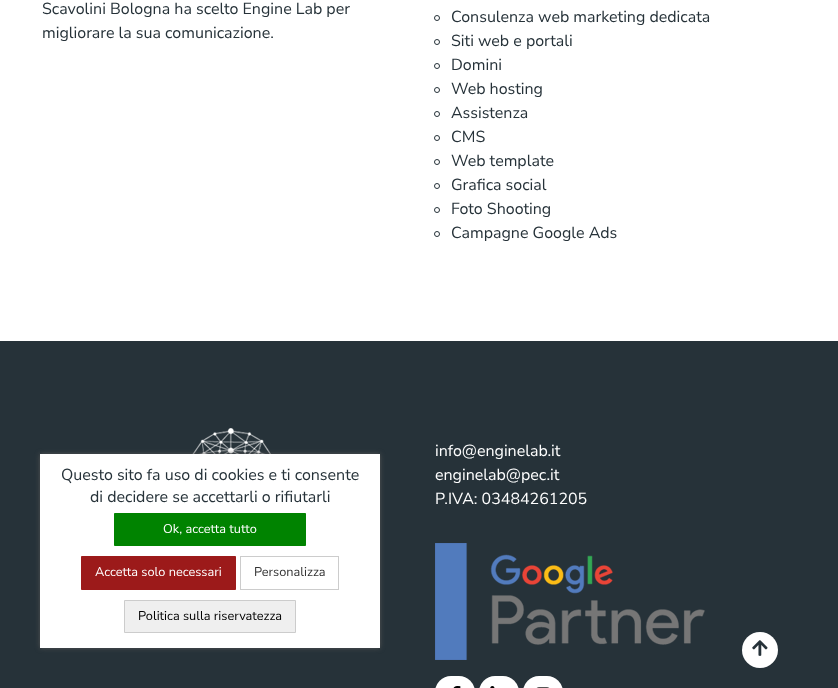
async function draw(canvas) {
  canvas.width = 838
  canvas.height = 688
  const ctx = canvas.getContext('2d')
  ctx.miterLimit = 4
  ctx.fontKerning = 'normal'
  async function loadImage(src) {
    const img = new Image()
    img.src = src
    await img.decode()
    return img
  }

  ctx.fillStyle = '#263239'
  ctx.fillRect(0, 0, 838, 688)
  ctx.fillStyle = '#fff'
  ctx.fillRect(0, 0, 838, 341)
  ctx.font = '16px Nunito Sans'
  ctx.fillStyle = '#263239'
  ctx.fillText('Scavolini Bologna ha scelto Engine Lab per', 42, 14)
  ctx.fillText('migliorare la sua comunicazione.', 42, 38)
  ctx.beginPath()
  ctx.arc(437, 18, 2.5, 0, 2 * Math.PI)
  ctx.strokeStyle = '#263239'
  ctx.stroke()
  ctx.fillText('Consulenza web marketing dedicata', 451, 22)
  ctx.beginPath()
  ctx.arc(437, 42, 2.5, 0, 2 * Math.PI)
  ctx.stroke()
  ctx.fillText('Siti web e portali', 451, 46)
  ctx.beginPath()
  ctx.arc(437, 66, 2.5, 0, 2 * Math.PI)
  ctx.stroke()
  ctx.fillText('Domini', 451, 70)
  ctx.beginPath()
  ctx.arc(437, 90, 2.5, 0, 2 * Math.PI)
  ctx.stroke()
  ctx.fillText('Web hosting', 451, 94)
  ctx.beginPath()
  ctx.arc(437, 114, 2.5, 0, 2 * Math.PI)
  ctx.stroke()
  ctx.fillText('Assistenza', 451, 118)
  ctx.beginPath()
  ctx.arc(437, 138, 2.5, 0, 2 * Math.PI)
  ctx.stroke()
  ctx.fillText('CMS', 451, 142)
  ctx.beginPath()
  ctx.arc(437, 162, 2.5, 0, 2 * Math.PI)
  ctx.stroke()
  ctx.fillText('Web template', 451, 166)
  ctx.beginPath()
  ctx.arc(437, 186, 2.5, 0, 2 * Math.PI)
  ctx.stroke()
  ctx.fillText('Grafica social', 451, 190)
  ctx.beginPath()
  ctx.arc(437, 210, 2.5, 0, 2 * Math.PI)
  ctx.stroke()
  ctx.fillText('Foto Shooting', 451, 214)
  ctx.beginPath()
  ctx.arc(437, 234, 2.5, 0, 2 * Math.PI)
  ctx.stroke()
  ctx.fillText('Campagne Google Ads', 451, 238)
  ctx.drawImage(await loadImage('image0.png'), 192, 428, 79, 26)
  ctx.fillStyle = '#fff'
  ctx.fillText('info@enginelab.it', 435, 456)
  ctx.fillText('enginelab@pec.it', 435, 480)
  ctx.fillText('P.IVA: 03484261205', 435, 504)
  ctx.drawImage(await loadImage('image1.png'), 435, 543, 270, 117)
  ctx.beginPath()
  ctx.roundRect(435, 676, 40, 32, 20)
  ctx.fill()
  ctx.drawImage(await loadImage('image2.png'), 453, 686, 8, 2)
  ctx.beginPath()
  ctx.roundRect(479, 676, 40, 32, 20)
  ctx.fill()
  ctx.drawImage(await loadImage('image3.png'), 490, 686, 5, 2)
  ctx.beginPath()
  ctx.roundRect(523, 676, 40, 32, 20)
  ctx.fill()
  ctx.drawImage(await loadImage('image4.png'), 536, 687, 14, 1)
  ctx.fillStyle = '#545454'
  ctx.filter = 'blur(2.5px)'
  ctx.beginPath()
  ctx.rect(40, 454, 340, 194)
  ctx.fill()
  ctx.filter = 'none'
  ctx.fillStyle = '#fff'
  ctx.fillRect(40, 454, 340, 194)
  ctx.fillStyle = '#263239'
  ctx.fillText('Questo sito fa uso di cookies e ti consente', 61, 480)
  ctx.fillText('di decidere se accettarli o rifiutarli', 90, 502)
  ctx.fillStyle = '#008300'
  ctx.beginPath()
  ctx.rect(114.5, 513.5, 191, 32)
  ctx.fill()
  ctx.strokeStyle = '#008300'
  ctx.stroke()
  ctx.font = '12.75px Nunito Sans'
  ctx.fillStyle = '#fff'
  ctx.fillText('Ok, accetta tutto', 163, 533)
  ctx.fillStyle = '#9c1a1a'
  ctx.beginPath()
  ctx.rect(81.5, 556.5, 154, 33)
  ctx.fill()
  ctx.strokeStyle = '#9c1a1a'
  ctx.stroke()
  ctx.fillStyle = '#fff'
  ctx.fillText('Accetta solo necessari', 95, 576)
  ctx.strokeStyle = '#ccc'
  ctx.strokeRect(240.5, 556.5, 98, 33)
  ctx.fillStyle = '#333'
  ctx.fillText('Personalizza', 254, 576)
  ctx.fillStyle = '#efefef'
  ctx.beginPath()
  ctx.rect(124.5, 600.5, 171, 32)
  ctx.fill()
  ctx.stroke()
  ctx.fillStyle = '#000'
  ctx.fillText('Politica sulla riservatezza', 138, 620)
  ctx.fillStyle = '#fff'
  ctx.beginPath()
  ctx.arc(760, 650, 18, 0, 2 * Math.PI)
  ctx.fill()
  ctx.drawImage(await loadImage('image5.png'), 752, 640, 16, 16)
}

draw(document.querySelector('canvas'))
